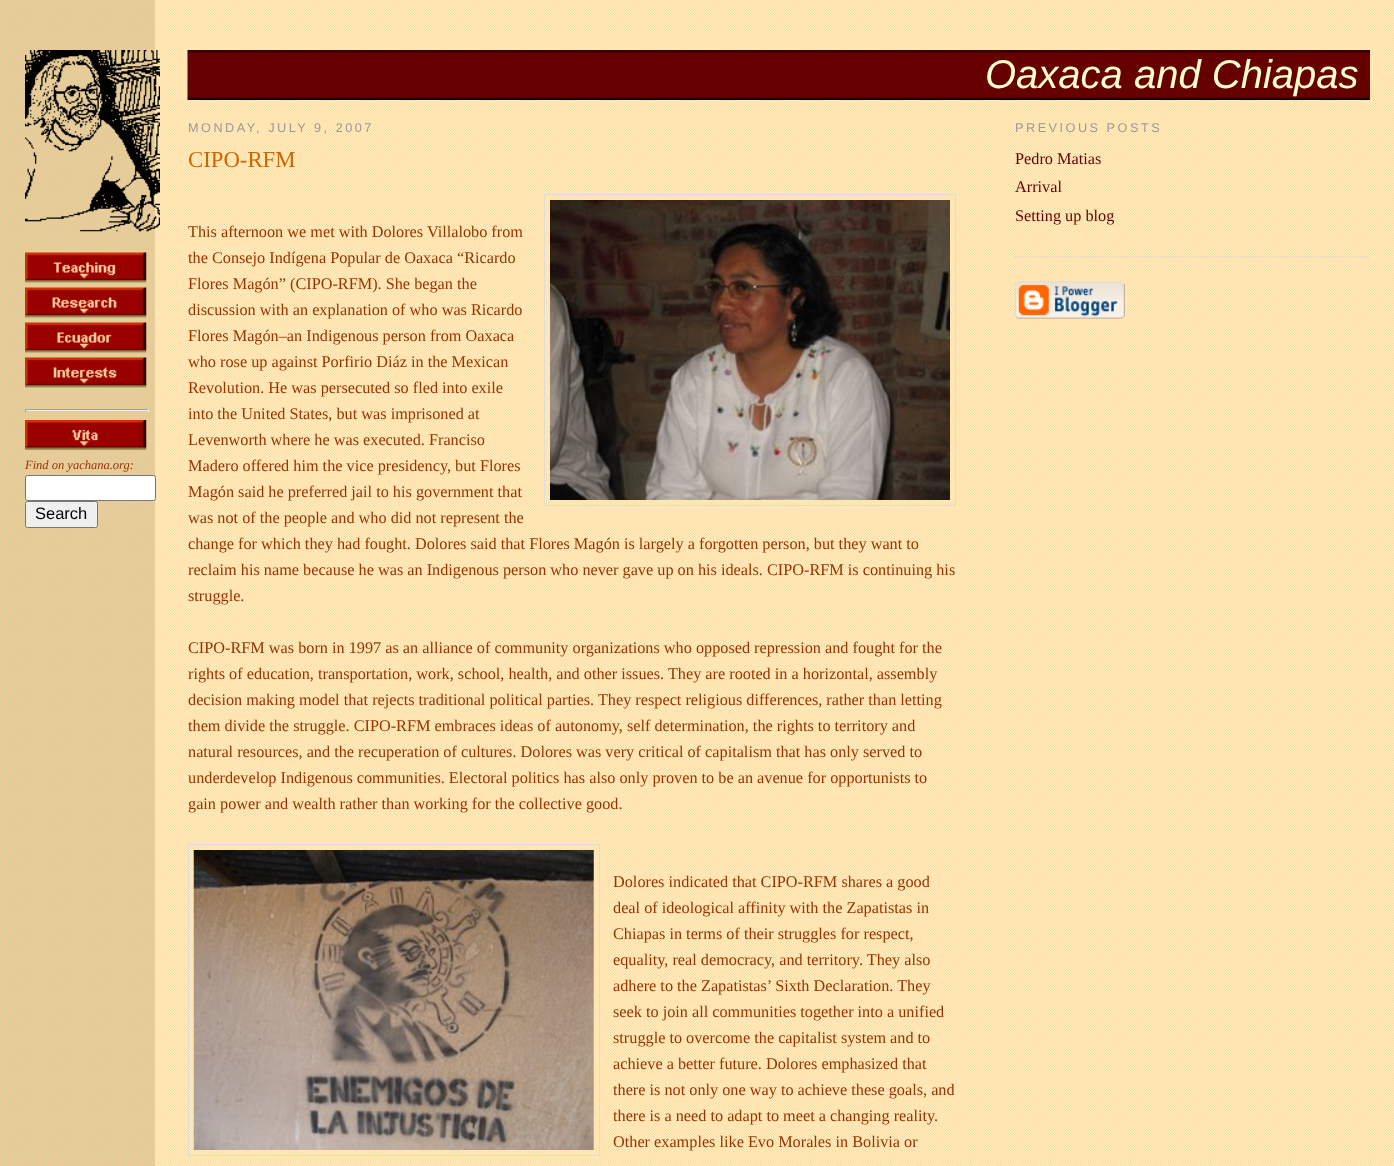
async function draw(canvas) {
  canvas.width = 1394
  canvas.height = 1166
  const ctx = canvas.getContext('2d')
  ctx.miterLimit = 4
  ctx.fontKerning = 'normal'
  async function loadImage(src) {
    const img = new Image()
    img.src = src
    await img.decode()
    return img
  }

  ctx.fillStyle = '#fff'
  ctx.fillRect(0, 0, 1394, 1166)
  ctx.drawImage(await loadImage('image0.png'), 0, 0, 1394, 1166)
  ctx.drawImage(await loadImage('image1.png'), 187, 50, 1183, 50)
  ctx.font = 'italic 40px Liberation Sans'
  ctx.fillStyle = '#ffc'
  ctx.fillText('Oaxaca and Chiapas', 985, 88)
  ctx.drawImage(await loadImage('image2.png'), 25, 50, 135, 182)
  ctx.drawImage(await loadImage('image3.png'), 25, 252, 122, 31)
  ctx.drawImage(await loadImage('image4.png'), 25, 287, 122, 31)
  ctx.drawImage(await loadImage('image5.png'), 25, 322, 122, 31)
  ctx.drawImage(await loadImage('image6.png'), 25, 357, 122, 31)
  ctx.fillStyle = '#9f9f9f'
  ctx.fillRect(25, 409, 124, 1)
  ctx.fillStyle = '#eee'
  ctx.fillRect(148, 409, 1, 3)
  ctx.fillRect(25, 410, 124, 1)
  ctx.fillStyle = '#9f9f9f'
  ctx.fillRect(25, 409, 1, 3)
  ctx.drawImage(await loadImage('image7.png'), 25, 420, 122, 30)
  ctx.font = 'italic 12.5px Liberation Serif'
  ctx.fillStyle = '#930'
  ctx.fillText('Find on yachana.org:', 25, 469)
  ctx.fillStyle = '#fff'
  ctx.beginPath()
  ctx.roundRect(25.5, 475.5, 130, 25, 2)
  ctx.fill()
  ctx.strokeStyle = '#767676'
  ctx.stroke()
  ctx.fillStyle = '#efefef'
  ctx.beginPath()
  ctx.roundRect(25.5, 501.5, 72, 26, 2)
  ctx.fill()
  ctx.stroke()
  ctx.font = '16.5px Liberation Sans'
  ctx.fillStyle = '#000'
  ctx.fillText('Search', 35, 519)
  ctx.letterSpacing = '2.5px'
  ctx.font = '12.7px Liberation Sans'
  ctx.fillStyle = '#999'
  ctx.fillText('MONDAY, JULY 9, 2007', 188, 132)
  ctx.letterSpacing = '0px'
  ctx.font = '22.75px Liberation Serif'
  ctx.fillStyle = '#c60'
  ctx.fillText('CIPO-RFM', 188, 167)
  ctx.font = '16.25px Liberation Serif'
  ctx.fillStyle = '#930'
  ctx.fillText('This afternoon we met with Dolores Villalobo from', 188, 237)
  ctx.strokeStyle = '#ddd'
  ctx.strokeRect(544.5, 194.5, 411, 311)
  ctx.drawImage(await loadImage('image8.png'), 550, 200, 400, 300)
  ctx.fillText('the Consejo Indígena Popular de Oaxaca “Ricardo', 188, 263)
  ctx.fillText('Flores Magón” (CIPO-RFM). She began the', 188, 289)
  ctx.fillText('discussion with an explanation of who was Ricardo', 188, 315)
  ctx.fillText('Flores Magón–an Indigenous person from Oaxaca', 188, 341)
  ctx.fillText('who rose up against Porfirio Diáz in the Mexican', 188, 367)
  ctx.fillText('Revolution. He was persecuted so fled into exile', 188, 393)
  ctx.fillText('into the United States, but was imprisoned at', 188, 419)
  ctx.fillText('Levenworth where he was executed. Franciso', 188, 445)
  ctx.fillText('Madero offered him the vice presidency, but Flores', 188, 471)
  ctx.fillText('Magón said he preferred jail to his government that', 188, 497)
  ctx.fillText('was not of the people and who did not represent the', 188, 523)
  ctx.fillText('change for which they had fought. Dolores said that Flores Magón is largely a forgotten person, but they want to', 188, 549)
  ctx.fillText('reclaim his name because he was an Indigenous person who never gave up on his ideals. CIPO-RFM is continuing his', 188, 575)
  ctx.fillText('struggle.', 188, 601)
  ctx.fillText('CIPO-RFM was born in 1997 as an alliance of community organizations who opposed repression and fought for the', 188, 653)
  ctx.fillText('rights of education, transportation, work, school, health, and other issues. They are rooted in a horizontal, assembly', 188, 679)
  ctx.fillText('decision making model that rejects traditional political parties. They respect religious differences, rather than letting', 188, 705)
  ctx.fillText('them divide the struggle. CIPO-RFM embraces ideas of autonomy, self determination, the rights to territory and', 188, 731)
  ctx.fillText('natural resources, and the recuperation of cultures. Dolores was very critical of capitalism that has only served to', 188, 757)
  ctx.fillText('underdevelop Indigenous communities. Electoral politics has also only proven to be an avenue for opportunists to', 188, 783)
  ctx.fillText('gain power and wealth rather than working for the collective good.', 188, 809)
  ctx.strokeRect(188.5, 844.5, 411, 311)
  ctx.drawImage(await loadImage('image9.png'), 193, 850, 401, 300)
  ctx.fillText('Dolores indicated that CIPO-RFM shares a good', 613, 887)
  ctx.fillText('deal of ideological affinity with the Zapatistas in', 613, 913)
  ctx.fillText('Chiapas in terms of their struggles for respect,', 613, 939)
  ctx.fillText('equality, real democracy, and territory. They also', 613, 965)
  ctx.fillText('adhere to the Zapatistas’ Sixth Declaration. They', 613, 991)
  ctx.fillText('seek to join all communities together into a unified', 613, 1017)
  ctx.fillText('struggle to overcome the capitalist system and to', 613, 1043)
  ctx.fillText('achieve a better future. Dolores emphasized that', 613, 1069)
  ctx.fillText('there is not only one way to achieve these goals, and', 613, 1095)
  ctx.fillText('there is a need to adapt to meet a changing reality.', 613, 1121)
  ctx.fillText('Other examples like Evo Morales in Bolivia or', 613, 1147)
  ctx.letterSpacing = '2.5px'
  ctx.font = '12.7px Liberation Sans'
  ctx.fillStyle = '#999'
  ctx.fillText('PREVIOUS POSTS', 1015, 132)
  ctx.beginPath()
  ctx.moveTo(1015, 257)
  ctx.lineTo(1370, 257)
  ctx.strokeStyle = '#ccc'
  ctx.lineWidth = 1.2
  ctx.setLineDash([1.25, 1.25])
  ctx.stroke()
  ctx.letterSpacing = '0px'
  ctx.font = '16.25px Liberation Serif'
  ctx.fillStyle = '#600'
  ctx.fillText('Pedro Matias', 1015, 164)
  ctx.fillText('Arrival', 1015, 192)
  ctx.fillText('Setting up blog', 1015, 221)
  ctx.drawImage(await loadImage('image10.png'), 1015, 281, 110, 38)
}

draw(document.querySelector('canvas'))
